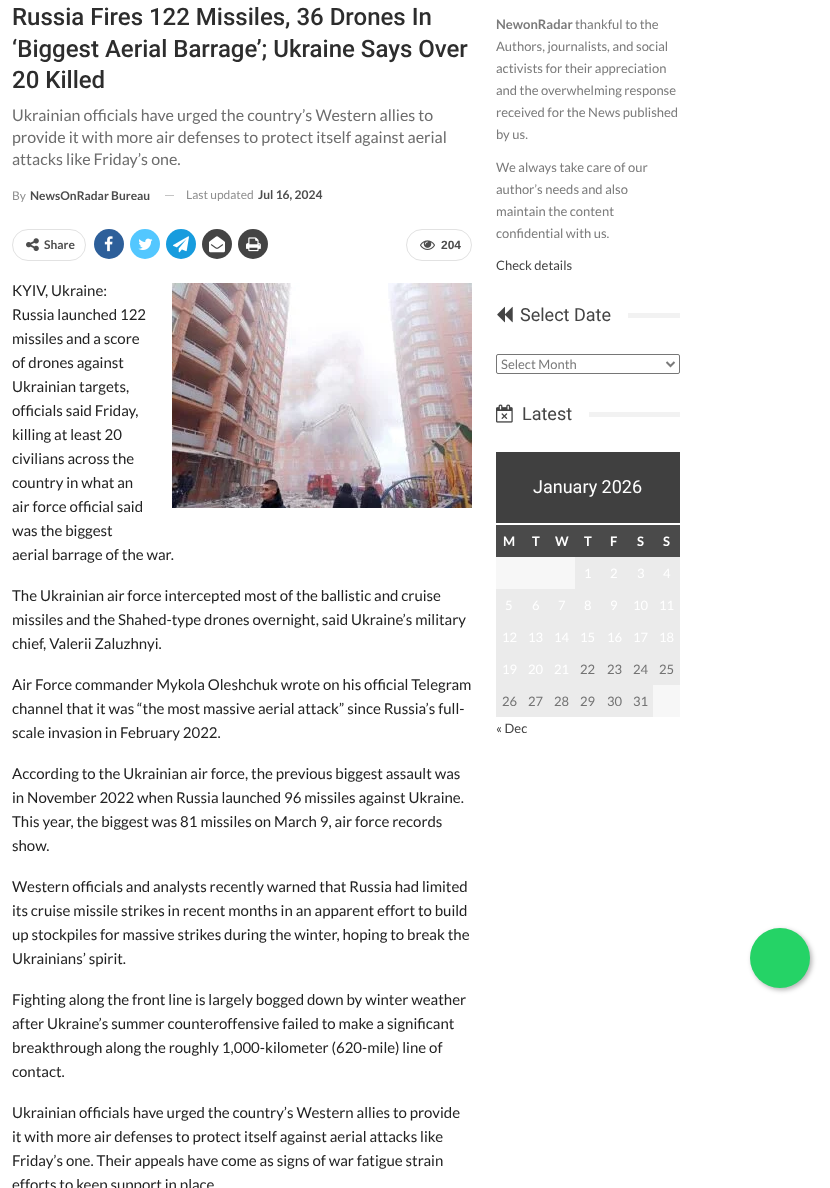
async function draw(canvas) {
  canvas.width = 830
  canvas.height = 1188
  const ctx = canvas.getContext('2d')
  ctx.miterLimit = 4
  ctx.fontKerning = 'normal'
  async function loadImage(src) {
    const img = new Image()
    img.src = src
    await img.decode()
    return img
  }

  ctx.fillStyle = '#fff'
  ctx.fillRect(0, 0, 830, 1188)
  ctx.font = '500 24px Roboto'
  ctx.fillStyle = '#2d2d2d'
  ctx.fillText('Russia Fires 122 Missiles, 36 Drones In', 12, 25)
  ctx.fillText('‘Biggest Aerial Barrage’; Ukraine Says Over', 12, 57)
  ctx.fillText('20 Killed', 12, 88)
  ctx.font = '16px Lato'
  ctx.fillStyle = '#6d6d6d'
  ctx.fillText('Ukrainian officials have urged the country’s Western allies to', 12, 121)
  ctx.fillText('provide it with more air defenses to protect itself against aerial', 12, 143)
  ctx.fillText('attacks like Friday’s one.', 12, 165)
  ctx.font = '12px Lato'
  ctx.fillStyle = '#8f8f8f'
  ctx.fillText('By', 12, 200)
  ctx.font = 'bold 12px Lato'
  ctx.fillStyle = '#4d4d4d'
  ctx.fillText('NewsOnRadar Bureau', 30, 200)
  ctx.fillStyle = '#c4c4c4'
  ctx.fillRect(165, 195, 9, 1)
  ctx.font = '12px Lato'
  ctx.fillStyle = '#8f8f8f'
  ctx.fillText('Last updated', 186, 199)
  ctx.font = 'bold 12px Lato'
  ctx.fillStyle = '#4d4d4d'
  ctx.fillText('Jul 16, 2024', 258, 199)
  ctx.beginPath()
  ctx.roundRect(12.5, 229.5, 73, 31, 15.5)
  ctx.strokeStyle = '#e2e2e2'
  ctx.stroke()
  ctx.drawImage(await loadImage('image0.png'), 26, 238, 13, 14)
  ctx.fillText('Share', 44, 249)
  ctx.fillStyle = '#2d5f9a'
  ctx.beginPath()
  ctx.arc(109, 244, 15, 0, 2 * Math.PI)
  ctx.fill()
  ctx.drawImage(await loadImage('image1.png'), 104, 236, 9, 16)
  ctx.fillStyle = '#53c7ff'
  ctx.beginPath()
  ctx.arc(145, 244, 15, 0, 2 * Math.PI)
  ctx.fill()
  ctx.drawImage(await loadImage('image2.png'), 138, 238, 15, 12)
  ctx.fillStyle = '#179cde'
  ctx.beginPath()
  ctx.arc(181, 244, 15, 0, 2 * Math.PI)
  ctx.fill()
  ctx.drawImage(await loadImage('image3.png'), 173, 236, 16, 17)
  ctx.fillStyle = '#444'
  ctx.beginPath()
  ctx.arc(217, 244, 15, 0, 2 * Math.PI)
  ctx.fill()
  ctx.drawImage(await loadImage('image4.png'), 209, 236, 16, 17)
  ctx.beginPath()
  ctx.arc(253, 244, 15, 0, 2 * Math.PI)
  ctx.fill()
  ctx.drawImage(await loadImage('image5.png'), 246, 237, 15, 15)
  ctx.beginPath()
  ctx.roundRect(406.5, 229.5, 65, 31, 15.5)
  ctx.stroke()
  ctx.drawImage(await loadImage('image6.png'), 420, 240, 15, 10)
  ctx.font = 'bold 12px Liberation Sans'
  ctx.fillStyle = '#4d4d4d'
  ctx.fillText('204', 441, 249)
  ctx.font = '15px Lato'
  ctx.fillStyle = '#222'
  ctx.fillText('KYIV, Ukraine:', 12, 296)
  ctx.drawImage(await loadImage('image7.png'), 172, 283, 300, 225)
  ctx.fillText('Russia launched 122', 12, 320)
  ctx.fillText('missiles and a score', 12, 344)
  ctx.fillText('of drones against', 12, 368)
  ctx.fillText('Ukrainian targets,', 12, 392)
  ctx.fillText('officials said Friday,', 12, 416)
  ctx.fillText('killing at least 20', 12, 440)
  ctx.fillText('civilians across the', 12, 464)
  ctx.fillText('country in what an', 12, 488)
  ctx.fillText('air force official said', 12, 512)
  ctx.fillText('was the biggest', 12, 536)
  ctx.fillText('aerial barrage of the war.', 12, 560)
  ctx.fillText('The Ukrainian air force intercepted most of the ballistic and cruise', 12, 601)
  ctx.fillText('missiles and the Shahed-type drones overnight, said Ukraine’s military', 12, 625)
  ctx.fillText('chief, Valerii Zaluzhnyi.', 12, 649)
  ctx.fillText('Air Force commander Mykola Oleshchuk wrote on his official Telegram', 12, 690)
  ctx.fillText('channel that it was “the most massive aerial attack” since Russia’s full-', 12, 714)
  ctx.fillText('scale invasion in February 2022.', 12, 738)
  ctx.fillText('According to the Ukrainian air force, the previous biggest assault was', 12, 779)
  ctx.fillText('in November 2022 when Russia launched 96 missiles against Ukraine.', 12, 803)
  ctx.fillText('This year, the biggest was 81 missiles on March 9, air force records', 12, 827)
  ctx.fillText('show.', 12, 851)
  ctx.fillText('Western officials and analysts recently warned that Russia had limited', 12, 892)
  ctx.fillText('its cruise missile strikes in recent months in an apparent effort to build', 12, 916)
  ctx.fillText('up stockpiles for massive strikes during the winter, hoping to break the', 12, 940)
  ctx.fillText('Ukrainians’ spirit.', 12, 964)
  ctx.fillText('Fighting along the front line is largely bogged down by winter weather', 12, 1005)
  ctx.fillText('after Ukraine’s summer counteroffensive failed to make a significant', 12, 1029)
  ctx.fillText('breakthrough along the roughly 1,000-kilometer (620-mile) line of', 12, 1053)
  ctx.fillText('contact.', 12, 1077)
  ctx.fillText('Ukrainian officials have urged the country’s Western allies to provide', 12, 1118)
  ctx.fillText('it with more air defenses to protect itself against aerial attacks like', 12, 1142)
  ctx.fillText('Friday’s one. Their appeals have come as signs of war fatigue strain', 12, 1166)
  ctx.fillText('efforts to keep support in place', 12, 1190)
  ctx.font = 'bold 13px Lato'
  ctx.fillStyle = '#7b7b7b'
  ctx.fillText('NewonRadar', 496, 29)
  ctx.font = '13px Lato'
  ctx.fillText('thankful to the', 575, 29)
  ctx.fillText('Authors, journalists, and social', 496, 51)
  ctx.fillText('activists for their appreciation', 496, 73)
  ctx.fillText('and the overwhelming response', 496, 95)
  ctx.fillText('received for the News published', 496, 117)
  ctx.fillText('by us.', 496, 139)
  ctx.fillText('We always take care of our', 496, 172)
  ctx.fillText('author’s needs and also', 496, 194)
  ctx.fillText('maintain the content', 496, 216)
  ctx.fillText('confidential with us.', 496, 238)
  ctx.fillStyle = '#444'
  ctx.fillText('Check details', 496, 270)
  ctx.drawImage(await loadImage('image8.png'), 497, 306, 16, 17)
  ctx.font = '18px Roboto'
  ctx.fillText('Select Date', 520, 321)
  ctx.fillStyle = '#f2f2f2'
  ctx.fillRect(628, 313, 52, 5)
  ctx.beginPath()
  ctx.roundRect(496.5, 354.5, 183, 19, 1.5)
  ctx.strokeStyle = '#767676'
  ctx.stroke()
  ctx.beginPath()
  ctx.moveTo(666.5, 362)
  ctx.lineTo(670.5, 366)
  ctx.lineTo(674.5, 362)
  ctx.strokeStyle = '#7b7b7b'
  ctx.lineWidth = 2
  ctx.stroke()
  ctx.font = '13px Lato'
  ctx.fillStyle = '#7b7b7b'
  ctx.fillText('Select Month', 501, 369)
  ctx.drawImage(await loadImage('image9.png'), 496, 404, 17, 19)
  ctx.font = '18px Roboto'
  ctx.fillStyle = '#444'
  ctx.fillText('Latest', 522, 420)
  ctx.fillStyle = '#f2f2f2'
  ctx.fillRect(589, 412, 91, 5)
  ctx.fillStyle = '#404040'
  ctx.fillRect(496, 452, 184, 71)
  ctx.fillStyle = '#fff'
  ctx.fillText('January 2026', 533, 493)
  ctx.fillStyle = '#4a4a4a'
  ctx.fillRect(496, 525, 184, 32)
  ctx.font = 'bold 13px Lato'
  ctx.fillStyle = '#fff'
  ctx.fillText('M', 503, 546)
  ctx.fillText('T', 532, 546)
  ctx.fillText('W', 555, 546)
  ctx.fillText('T', 584, 546)
  ctx.fillText('F', 610, 546)
  ctx.fillText('S', 637, 546)
  ctx.fillText('S', 663, 546)
  ctx.fillStyle = '#f7f7f7'
  ctx.fillRect(496, 557, 79, 32)
  ctx.fillStyle = '#ebebeb'
  ctx.fillRect(575, 557, 105, 32)
  ctx.font = '13px Lato'
  ctx.fillStyle = '#fff'
  ctx.fillText('1', 584, 578)
  ctx.fillText('2', 610, 578)
  ctx.fillText('3', 637, 578)
  ctx.fillText('4', 663, 578)
  ctx.fillStyle = '#ebebeb'
  ctx.fillRect(496, 589, 184, 32)
  ctx.fillStyle = '#fff'
  ctx.fillText('5', 505, 610)
  ctx.fillText('6', 532, 610)
  ctx.fillText('7', 558, 610)
  ctx.fillText('8', 584, 610)
  ctx.fillText('9', 610, 610)
  ctx.fillText('10', 633, 610)
  ctx.fillText('11', 659, 610)
  ctx.fillStyle = '#ebebeb'
  ctx.fillRect(496, 621, 184, 32)
  ctx.fillStyle = '#fff'
  ctx.fillText('12', 502, 642)
  ctx.fillText('13', 528, 642)
  ctx.fillText('14', 554, 642)
  ctx.fillText('15', 580, 642)
  ctx.fillText('16', 607, 642)
  ctx.fillText('17', 633, 642)
  ctx.fillText('18', 659, 642)
  ctx.fillStyle = '#ebebeb'
  ctx.fillRect(496, 653, 184, 32)
  ctx.fillStyle = '#fff'
  ctx.fillText('19', 502, 674)
  ctx.fillText('20', 528, 674)
  ctx.fillText('21', 554, 674)
  ctx.fillStyle = '#737373'
  ctx.fillText('22', 580, 674)
  ctx.fillText('23', 607, 674)
  ctx.fillText('24', 633, 674)
  ctx.fillText('25', 659, 674)
  ctx.fillStyle = '#ebebeb'
  ctx.fillRect(496, 685, 157, 32)
  ctx.fillStyle = '#737373'
  ctx.fillText('26', 502, 706)
  ctx.fillText('27', 528, 706)
  ctx.fillText('28', 554, 706)
  ctx.fillText('29', 580, 706)
  ctx.fillText('30', 607, 706)
  ctx.fillText('31', 633, 706)
  ctx.fillStyle = '#f7f7f7'
  ctx.fillRect(653, 685, 27, 32)
  ctx.fillStyle = '#444'
  ctx.fillText('« Dec', 496, 733)
  ctx.fillStyle = '#0000004d'
  ctx.filter = 'blur(2.5px)'
  ctx.beginPath()
  ctx.roundRect(752, 930, 60, 60, 30)
  ctx.fill()
  ctx.filter = 'none'
  ctx.fillStyle = '#25d366'
  ctx.beginPath()
  ctx.arc(780, 958, 30, 0, 2 * Math.PI)
  ctx.fill()
}

draw(document.querySelector('canvas'))
